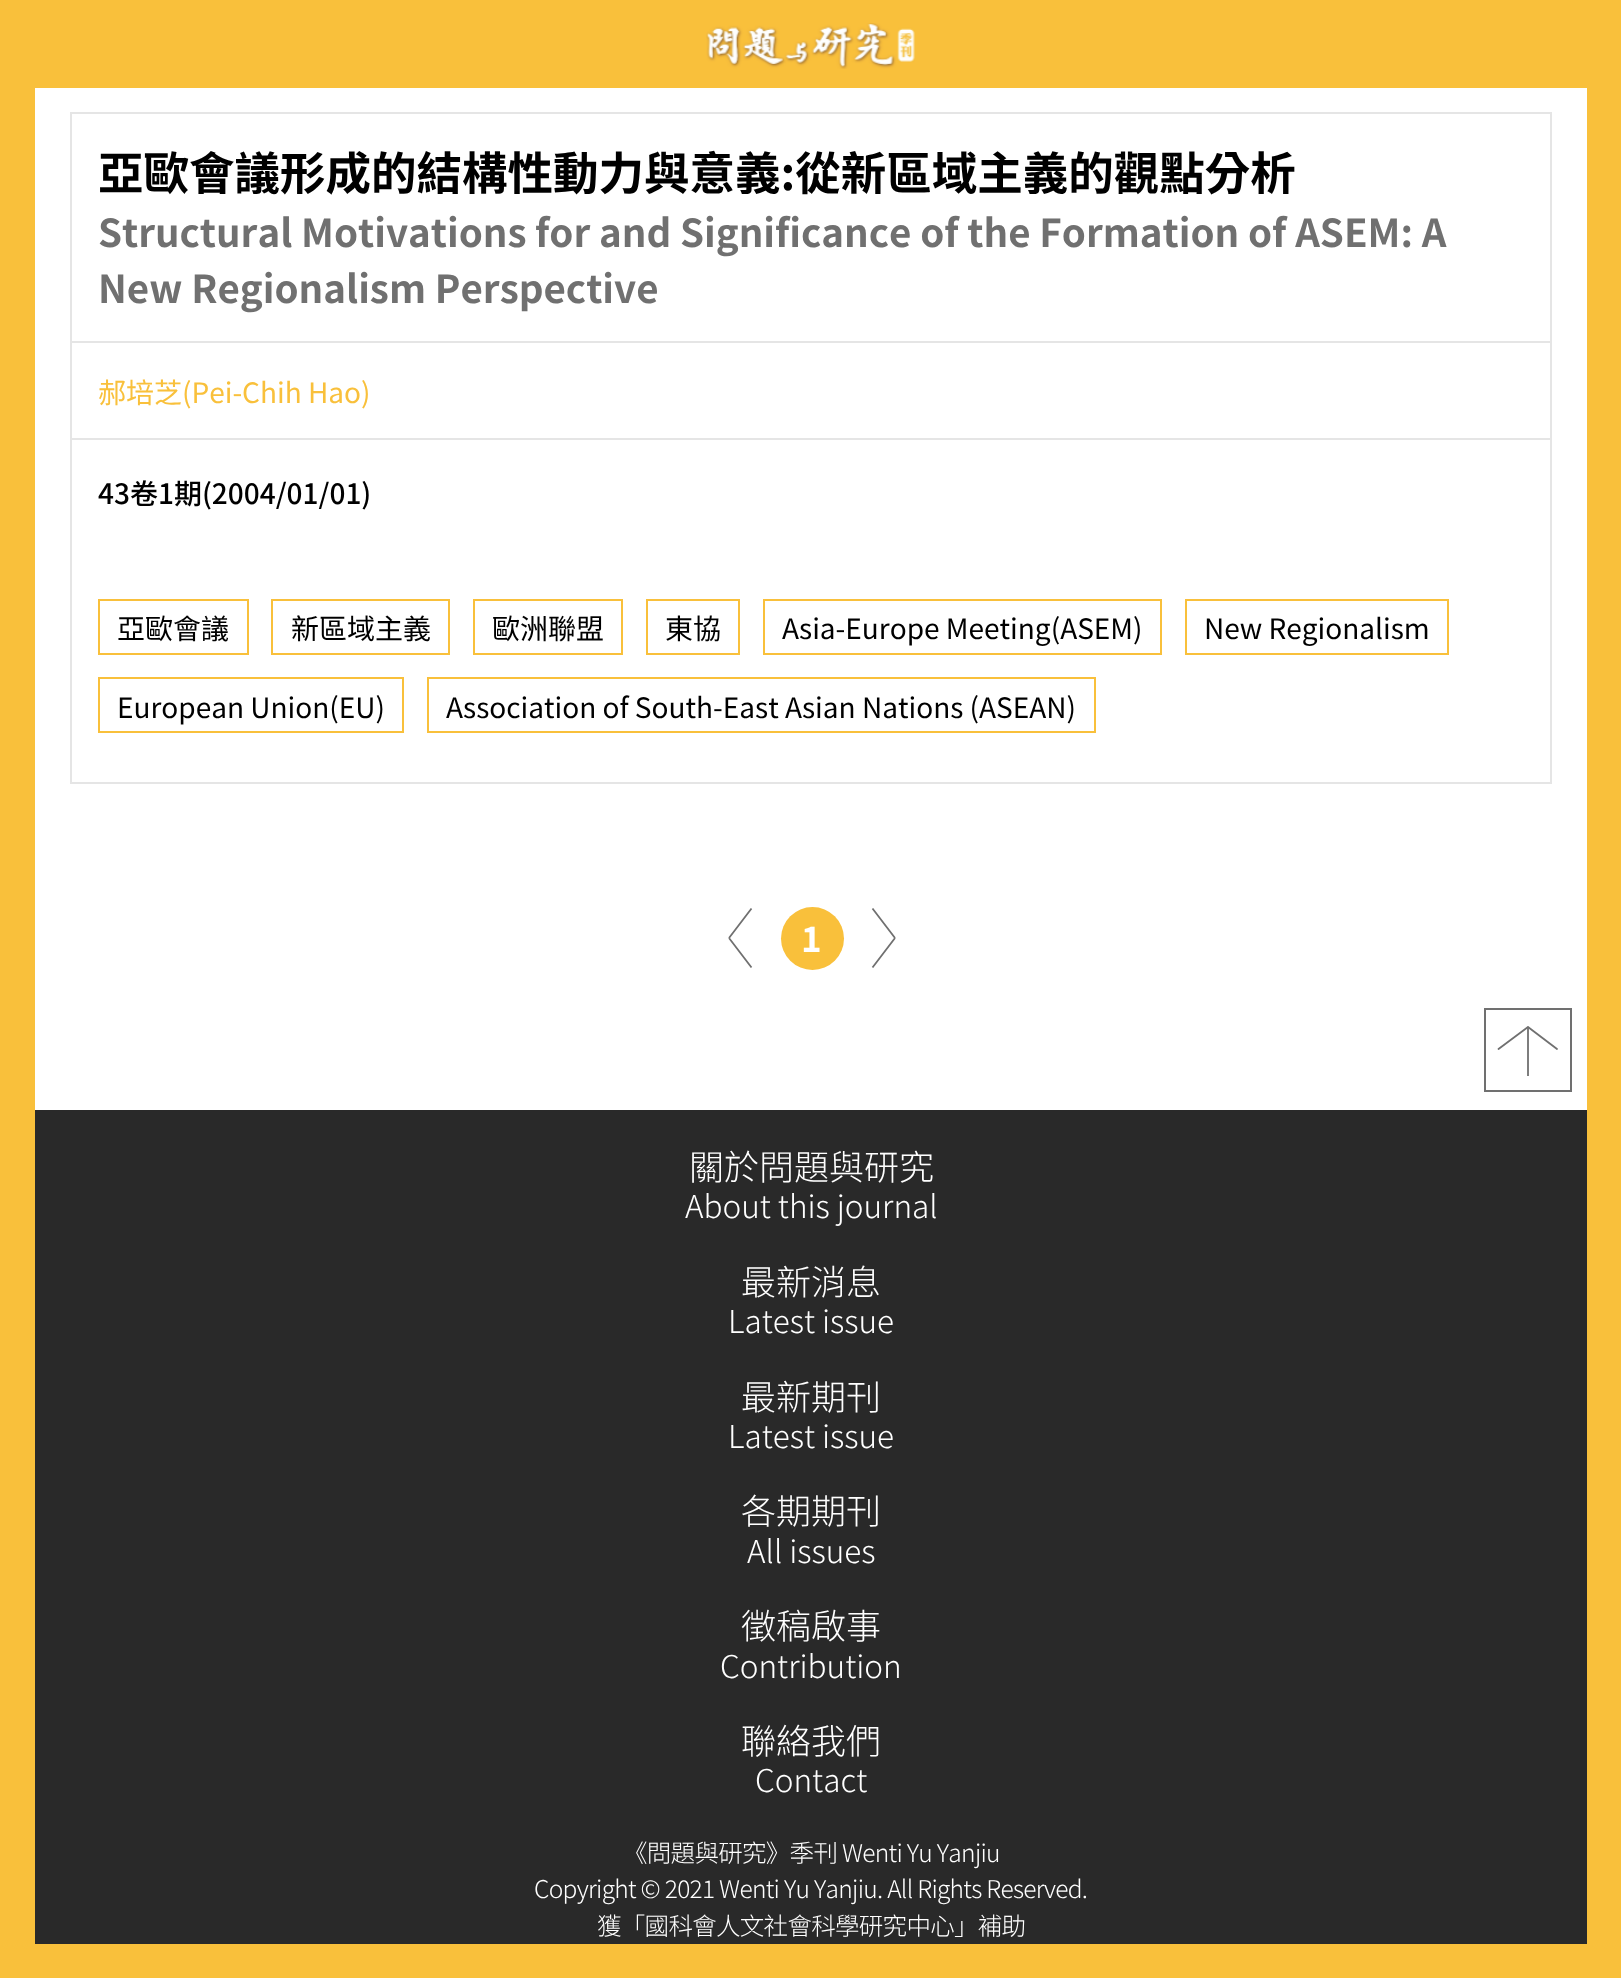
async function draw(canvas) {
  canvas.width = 1621
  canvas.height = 1978
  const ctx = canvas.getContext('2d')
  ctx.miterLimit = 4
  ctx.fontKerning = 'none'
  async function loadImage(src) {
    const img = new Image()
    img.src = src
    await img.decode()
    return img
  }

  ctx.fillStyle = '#fff'
  ctx.fillRect(0, 0, 1621, 1978)
  ctx.fillStyle = '#f9c03b'
  ctx.fillRect(0, 0, 1621, 88)
  ctx.drawImage(await loadImage('image0.png'), 706, 23, 209, 46)
  ctx.fillRect(0, 88, 35, 1856)
  ctx.strokeStyle = '#e5e5e5'
  ctx.lineWidth = 2
  ctx.strokeRect(71, 113, 1480, 670)
  ctx.fillStyle = '#e5e5e5'
  ctx.fillRect(72, 341, 1479, 2)
  ctx.font = 'bold 45.5px Noto Sans TC'
  ctx.fillStyle = '#000'
  ctx.fillText('亞歐會議形成的結構性動力與意義:從新區域主義的觀點分析', 98, 190)
  ctx.font = 'bold 38.5px Noto Sans TC'
  ctx.fillStyle = '#707070'
  ctx.fillText('Structural Motivations', 98, 247)
  ctx.fillText('for and Significance of the Formation of ASEM: A', 535, 247)
  ctx.fillText('New Regionalism Perspective', 98, 303)
  ctx.fillStyle = '#e5e5e5'
  ctx.fillRect(72, 438, 1479, 2)
  ctx.font = '28px Noto Sans TC'
  ctx.fillStyle = '#f9c03b'
  ctx.fillText('郝培芝(Pei-Chih Hao)', 98, 403)
  ctx.font = '500 28px Noto Sans TC'
  ctx.fillStyle = '#000'
  ctx.fillText('43卷1期(2004/01/01)', 98, 504)
  ctx.strokeStyle = '#f9c03b'
  ctx.strokeRect(99, 600, 149, 54)
  ctx.font = '28px Noto Sans TC'
  ctx.fillText('亞歐會議', 117, 639)
  ctx.strokeRect(272, 600, 177, 54)
  ctx.fillText('新區域主義', 291, 639)
  ctx.strokeRect(474, 600, 148, 54)
  ctx.fillText('歐洲聯盟', 492, 639)
  ctx.strokeRect(647, 600, 92, 54)
  ctx.fillText('東協', 665, 639)
  ctx.strokeRect(764, 600, 397, 54)
  ctx.fillText('Asia-Europe Meeting(ASEM)', 782, 639)
  ctx.strokeRect(1186, 600, 262, 54)
  ctx.fillText('New Regionalism', 1204, 639)
  ctx.strokeRect(99, 678, 304, 54)
  ctx.fillText('European Union(EU)', 117, 718)
  ctx.strokeRect(428, 678, 667, 54)
  ctx.fillText('Association of South-East Asian Nations (ASEAN)', 446, 718)
  ctx.beginPath()
  ctx.moveTo(729, 938)
  ctx.lineTo(751.5, 908.5)
  ctx.closePath()
  ctx.moveTo(751.5, 967.5)
  ctx.lineTo(729, 938)
  ctx.closePath()
  ctx.strokeStyle = '#707070'
  ctx.lineWidth = 1.8
  ctx.stroke()
  ctx.fillStyle = '#f9c03b'
  ctx.beginPath()
  ctx.arc(812.5, 938.5, 31.5, 0, 2 * Math.PI)
  ctx.fill()
  ctx.font = 'bold 35px Noto Sans TC'
  ctx.fillStyle = '#fff'
  ctx.fillText('1', 801, 952)
  ctx.beginPath()
  ctx.moveTo(895, 938)
  ctx.lineTo(872.5, 967.5)
  ctx.closePath()
  ctx.moveTo(872.5, 908.5)
  ctx.lineTo(895, 938)
  ctx.closePath()
  ctx.stroke()
  ctx.beginPath()
  ctx.moveTo(1528, 1027)
  ctx.lineTo(1557, 1049)
  ctx.closePath()
  ctx.moveTo(1498.5, 1049)
  ctx.lineTo(1528, 1027)
  ctx.closePath()
  ctx.lineJoin = 'round'
  ctx.stroke()
  ctx.lineWidth = 2
  ctx.lineJoin = 'miter'
  ctx.strokeRect(1485, 1009, 86, 82)
  ctx.fillStyle = '#707070e6'
  ctx.fillRect(1527, 1027, 2, 49)
  ctx.fillStyle = '#f9c03b'
  ctx.fillRect(1587, 88, 34, 1856)
  ctx.fillStyle = '#292929'
  ctx.fillRect(35, 1110, 1552, 834)
  ctx.font = '300 35px Noto Sans TC'
  ctx.fillStyle = '#fff'
  ctx.fillText('關於問題與研究', 689, 1180)
  ctx.font = '300 31.5px Noto Sans TC'
  ctx.fillText('About this journal', 685, 1218)
  ctx.font = '300 35px Noto Sans TC'
  ctx.fillText('最新消息', 741, 1295)
  ctx.font = '300 31.5px Noto Sans TC'
  ctx.fillText('Latest issue', 728, 1333)
  ctx.font = '300 35px Noto Sans TC'
  ctx.fillText('最新期刊', 741, 1410)
  ctx.font = '300 31.5px Noto Sans TC'
  ctx.fillText('Latest issue', 728, 1448)
  ctx.font = '300 35px Noto Sans TC'
  ctx.fillText('各期期刊', 741, 1524)
  ctx.font = '300 31.5px Noto Sans TC'
  ctx.fillText('All issues', 747, 1563)
  ctx.font = '300 35px Noto Sans TC'
  ctx.fillText('徵稿啟事', 741, 1639)
  ctx.font = '300 31.5px Noto Sans TC'
  ctx.fillText('Contribution', 720, 1678)
  ctx.font = '300 35px Noto Sans TC'
  ctx.fillText('聯絡我們', 741, 1754)
  ctx.font = '300 31.5px Noto Sans TC'
  ctx.fillText('Contact', 755, 1792)
  ctx.letterSpacing = '-0.7px'
  ctx.font = '300 24.5px Noto Sans TC'
  ctx.fillText('《問題與研究》季刊 Wenti Yu Yanjiu', 623, 1862)
  ctx.fillText('Copyright © 2021 Wenti Yu Yanjiu. All Rights Reserved.', 534, 1898)
  ctx.fillText('獲「國科會人文社會科學研究中心」補助', 597, 1935)
  ctx.fillStyle = '#f9c03b'
  ctx.fillRect(0, 1944, 1621, 34)
}

draw(document.querySelector('canvas'))
